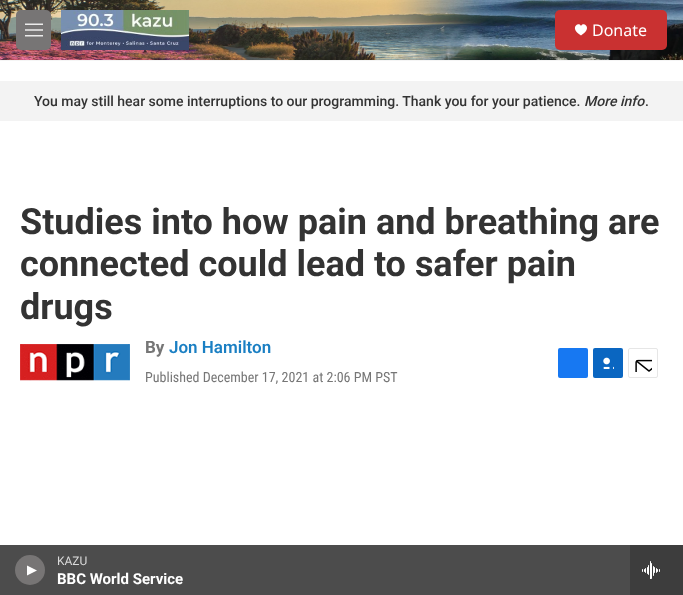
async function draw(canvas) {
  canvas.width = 683
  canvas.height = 595
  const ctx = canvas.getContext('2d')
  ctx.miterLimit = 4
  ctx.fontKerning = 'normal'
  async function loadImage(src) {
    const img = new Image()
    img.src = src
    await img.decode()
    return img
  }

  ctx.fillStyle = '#fff'
  ctx.fillRect(0, 0, 683, 595)
  ctx.fillStyle = '#f5f5f5'
  ctx.fillRect(0, 60, 683, 1)
  ctx.drawImage(await loadImage('image0.png'), 0, 0, 683, 60)
  ctx.fillStyle = '#777575'
  ctx.beginPath()
  ctx.roundRect(16, 10, 35, 40, 5)
  ctx.fill()
  ctx.drawImage(await loadImage('image1.png'), 25, 23, 18, 14)
  ctx.drawImage(await loadImage('image2.png'), 61, 10, 128, 40)
  ctx.fillStyle = '#c93131'
  ctx.beginPath()
  ctx.roundRect(555, 10, 112, 40, 5)
  ctx.fill()
  ctx.fillStyle = '#fff'
  ctx.beginPath()
  ctx.moveTo(581, 26)
  ctx.bezierCurveTo(579, 21, 568.5, 28, 581, 35.5)
  ctx.bezierCurveTo(593.5, 28, 583, 21, 581, 26)
  ctx.closePath()
  ctx.fill()
  ctx.font = '16px Noto Sans'
  ctx.fillText('Donate', 592, 36)
  ctx.fillStyle = '#4c4c4c'
  ctx.fillRect(0, 545, 630, 50)
  ctx.fillStyle = '#777575'
  ctx.beginPath()
  ctx.arc(30, 570, 15, 0, 2 * Math.PI)
  ctx.fill()
  ctx.fillStyle = '#fff'
  ctx.beginPath()
  ctx.moveTo(27, 565.5)
  ctx.lineTo(37, 570.5)
  ctx.lineTo(27, 575.5)
  ctx.closePath()
  ctx.fill()
  ctx.font = '12px Roboto'
  ctx.fillStyle = '#dbdbdb'
  ctx.fillText('KAZU', 57, 565)
  ctx.font = 'bold 15px "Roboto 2"'
  ctx.fillStyle = '#fff'
  ctx.fillText('BBC World Service', 57, 584)
  ctx.fillStyle = '#3d3d3d'
  ctx.fillRect(630, 545, 53, 50)
  ctx.drawImage(await loadImage('image3.png'), 642, 561, 18, 18)
  ctx.fillStyle = '#f3f3f3'
  ctx.fillRect(0, 81, 683, 40)
  ctx.font = '500 14px Roboto'
  ctx.fillStyle = '#333'
  ctx.fillText('You may still hear some interruptions to our programming. Thank you for your patience.', 34, 106)
  ctx.font = 'italic 500 14px Roboto'
  ctx.fillText('More info', 584, 106)
  ctx.font = '500 14px Roboto'
  ctx.fillText('.', 645, 106)
  ctx.font = 'bold 36px Roboto'
  ctx.fillText('Studies into how pain and breathing are', 20, 234)
  ctx.fillText('connected could lead to safer pain', 20, 276)
  ctx.fillText('drugs', 20, 319)
  ctx.drawImage(await loadImage('image4.png'), 20, 344, 110, 37)
  ctx.font = 'bold 17px Roboto'
  ctx.fillStyle = '#767676'
  ctx.fillText('By', 145, 353)
  ctx.font = '600 17px Roboto'
  ctx.fillStyle = '#1a7fc3'
  ctx.fillText('Jon Hamilton', 169, 353)
  ctx.font = '14px Roboto Condensed'
  ctx.fillStyle = '#767676'
  ctx.fillText('Published December 17, 2021 at 2:06 PM PST', 145, 382)
  ctx.fillStyle = '#1778f2'
  ctx.beginPath()
  ctx.roundRect(558, 348, 30, 30, 2)
  ctx.fill()
  ctx.fillStyle = '#0a66c1'
  ctx.beginPath()
  ctx.roundRect(593, 348, 30, 30, 2)
  ctx.fill()
  ctx.drawImage(await loadImage('image5.png'), 603, 357, 11, 12)
  ctx.beginPath()
  ctx.roundRect(628.5, 348.5, 29, 29, 1.5)
  ctx.strokeStyle = '#e6e6e6'
  ctx.stroke()
  ctx.drawImage(await loadImage('image6.png'), 635, 359, 17, 13)
}

draw(document.querySelector('canvas'))
